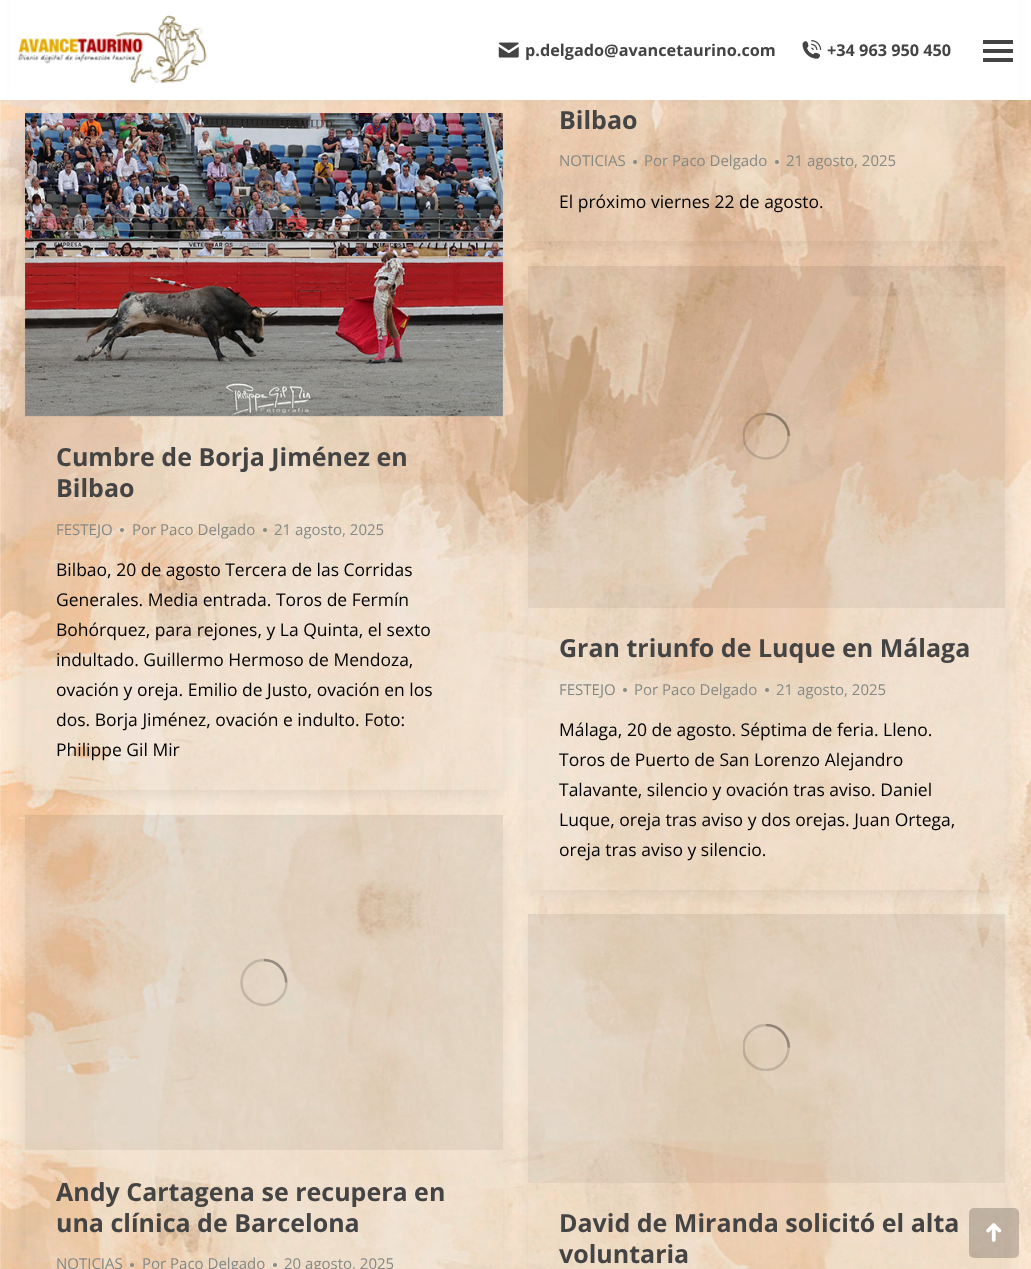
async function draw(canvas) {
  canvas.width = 1031
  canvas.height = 1269
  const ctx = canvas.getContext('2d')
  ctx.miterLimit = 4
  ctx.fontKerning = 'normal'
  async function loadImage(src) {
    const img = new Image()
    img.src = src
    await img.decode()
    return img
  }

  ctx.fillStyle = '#fff'
  ctx.fillRect(0, 0, 1031, 1269)
  ctx.drawImage(await loadImage('image0.png'), 0, 100, 1031, 1169)
  ctx.fillStyle = '#0000001a'
  ctx.filter = 'blur(11px)'
  ctx.beginPath()
  ctx.rect(25, -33, 478, 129)
  ctx.fill()
  ctx.filter = 'none'
  ctx.save()
  ctx.beginPath()
  ctx.moveTo(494, 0)
  ctx.lineTo(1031, 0)
  ctx.lineTo(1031, 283)
  ctx.lineTo(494, 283)
  ctx.closePath()
  ctx.moveTo(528, -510)
  ctx.lineTo(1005, -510)
  ctx.lineTo(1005, 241)
  ctx.lineTo(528, 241)
  ctx.closePath()
  ctx.clip('evenodd')
  ctx.filter = 'blur(11px)'
  ctx.beginPath()
  ctx.rect(528, -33, 477, 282)
  ctx.fill()
  ctx.filter = 'none'
  ctx.restore()
  ctx.fillStyle = '#0000000a'
  ctx.fillRect(528, 100, 477, 141)
  ctx.save()
  ctx.beginPath()
  ctx.moveTo(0, 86)
  ctx.lineTo(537, 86)
  ctx.lineTo(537, 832)
  ctx.lineTo(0, 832)
  ctx.closePath()
  ctx.moveTo(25, 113)
  ctx.lineTo(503, 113)
  ctx.lineTo(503, 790)
  ctx.lineTo(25, 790)
  ctx.closePath()
  ctx.clip('evenodd')
  ctx.fillStyle = '#0000001a'
  ctx.filter = 'blur(11px)'
  ctx.beginPath()
  ctx.rect(25, 120, 478, 678)
  ctx.fill()
  ctx.filter = 'none'
  ctx.restore()
  ctx.fillStyle = '#fff'
  ctx.fillRect(11, 0, 1008, 100)
  ctx.drawImage(await loadImage('image1.png'), 17, 15, 190, 69)
  ctx.drawImage(await loadImage('image2.png'), 498, 42, 21, 16)
  ctx.font = 'bold 16.25px Open Sans'
  ctx.fillStyle = '#444'
  ctx.fillText('p.delgado@avancetaurino.com', 525, 56)
  ctx.drawImage(await loadImage('image3.png'), 802, 40, 20, 19)
  ctx.fillText('+34 963 950 450', 827, 56)
  ctx.fillRect(983, 40, 30, 4)
  ctx.fillRect(983, 49, 30, 4)
  ctx.fillRect(983, 58, 30, 4)
  ctx.font = 'bold 25px Open Sans'
  ctx.fillText('Bilbao', 559, 129)
  ctx.font = '15px Open Sans'
  ctx.fillStyle = '#858985'
  ctx.fillText('NOTICIAS', 559, 166)
  ctx.beginPath()
  ctx.arc(635, 162, 2, 0, 2 * Math.PI)
  ctx.fill()
  ctx.fillText('Por Paco Delgado', 644, 166)
  ctx.beginPath()
  ctx.arc(777, 162, 2, 0, 2 * Math.PI)
  ctx.fill()
  ctx.fillText('21 agosto, 2025', 786, 166)
  ctx.font = '17.5px Open Sans'
  ctx.fillStyle = '#000'
  ctx.fillText('El próximo viernes 22 de agosto.', 559, 208)
  ctx.fillStyle = '#0000000a'
  ctx.fillRect(25, 416, 478, 374)
  ctx.drawImage(await loadImage('image4.png'), 25, 113, 478, 304)
  ctx.font = 'bold 25px Open Sans'
  ctx.fillStyle = '#444'
  ctx.fillText('Cumbre de Borja Jiménez en', 56, 466)
  ctx.fillText('Bilbao', 56, 497)
  ctx.font = '15px Open Sans'
  ctx.fillStyle = '#858985'
  ctx.fillText('FESTEJO', 56, 535)
  ctx.beginPath()
  ctx.arc(122, 530, 2, 0, 2 * Math.PI)
  ctx.fill()
  ctx.fillText('Por Paco Delgado', 132, 535)
  ctx.beginPath()
  ctx.arc(265, 530, 2, 0, 2 * Math.PI)
  ctx.fill()
  ctx.fillText('21 agosto, 2025', 274, 535)
  ctx.font = '17.5px Open Sans'
  ctx.fillStyle = '#000'
  ctx.fillText('Bilbao, 20 de agosto Tercera de las Corridas', 56, 576)
  ctx.fillText('Generales. Media entrada. Toros de Fermín', 56, 606)
  ctx.fillText('Bohórquez, para rejones, y La Quinta, el sexto', 56, 636)
  ctx.fillText('indultado. Guillermo Hermoso de Mendoza,', 56, 666)
  ctx.fillText('ovación y oreja. Emilio de Justo, ovación en los', 56, 696)
  ctx.fillText('dos. Borja Jiménez, ovación e indulto. Foto:', 56, 726)
  ctx.fillText('Philippe Gil Mir', 56, 756)
  ctx.save()
  ctx.beginPath()
  ctx.moveTo(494, 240)
  ctx.lineTo(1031, 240)
  ctx.lineTo(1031, 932)
  ctx.lineTo(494, 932)
  ctx.closePath()
  ctx.moveTo(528, 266)
  ctx.lineTo(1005, 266)
  ctx.lineTo(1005, 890)
  ctx.lineTo(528, 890)
  ctx.closePath()
  ctx.clip('evenodd')
  ctx.fillStyle = '#0000001a'
  ctx.filter = 'blur(11px)'
  ctx.beginPath()
  ctx.rect(528, 274, 477, 624)
  ctx.fill()
  ctx.filter = 'none'
  ctx.restore()
  ctx.fillStyle = '#0000000a'
  ctx.fillRect(528, 266, 477, 624)
  ctx.fillStyle = '#0000000d'
  ctx.fillRect(528, 266, 477, 342)
  ctx.save()
  ctx.beginPath()
  ctx.rect(743, 413, 47, 47)
  ctx.clip()
  ctx.beginPath()
  ctx.arc(766, 436, 22.5, 0, 2 * Math.PI)
  ctx.strokeStyle = '#00000024'
  ctx.lineWidth = 2.5
  ctx.stroke()
  ctx.restore()
  ctx.beginPath()
  ctx.moveTo(789, 436)
  ctx.bezierCurveTo(789, 424, 778.5, 414, 766, 414)
  ctx.strokeStyle = '#00000040'
  ctx.lineWidth = 2.5
  ctx.stroke()
  ctx.font = 'bold 25px Open Sans'
  ctx.fillStyle = '#444'
  ctx.fillText('Gran triunfo de Luque en Málaga', 559, 657)
  ctx.font = '15px Open Sans'
  ctx.fillStyle = '#858985'
  ctx.fillText('FESTEJO', 559, 695)
  ctx.beginPath()
  ctx.arc(625, 690, 2, 0, 2 * Math.PI)
  ctx.fill()
  ctx.fillText('Por Paco Delgado', 634, 695)
  ctx.beginPath()
  ctx.arc(767, 690, 2, 0, 2 * Math.PI)
  ctx.fill()
  ctx.fillText('21 agosto, 2025', 776, 695)
  ctx.font = '17.5px Open Sans'
  ctx.fillStyle = '#000'
  ctx.fillText('Málaga, 20 de agosto. Séptima de feria. Lleno.', 559, 736)
  ctx.fillText('Toros de Puerto de San Lorenzo Alejandro', 559, 766)
  ctx.fillText('Talavante, silencio y ovación tras aviso. Daniel', 559, 796)
  ctx.fillText('Luque, oreja tras aviso y dos orejas. Juan Ortega,', 559, 826)
  ctx.fillText('oreja tras aviso y silencio.', 559, 856)
  ctx.save()
  ctx.beginPath()
  ctx.moveTo(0, 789)
  ctx.lineTo(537, 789)
  ctx.lineTo(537, 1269)
  ctx.lineTo(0, 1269)
  ctx.closePath()
  ctx.moveTo(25, 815)
  ctx.lineTo(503, 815)
  ctx.lineTo(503, 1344)
  ctx.lineTo(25, 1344)
  ctx.closePath()
  ctx.clip('evenodd')
  ctx.fillStyle = '#0000001a'
  ctx.filter = 'blur(11px)'
  ctx.beginPath()
  ctx.rect(25, 823, 478, 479)
  ctx.fill()
  ctx.filter = 'none'
  ctx.restore()
  ctx.fillStyle = '#0000000a'
  ctx.fillRect(25, 815, 478, 454)
  ctx.fillStyle = '#0000000d'
  ctx.fillRect(25, 815, 478, 335)
  ctx.beginPath()
  ctx.arc(264, 982.5, 22.5, 0, 2 * Math.PI)
  ctx.strokeStyle = '#00000024'
  ctx.stroke()
  ctx.beginPath()
  ctx.moveTo(286, 982.5)
  ctx.bezierCurveTo(286, 970, 276, 960, 264, 960)
  ctx.strokeStyle = '#00000040'
  ctx.stroke()
  ctx.font = 'bold 25px Open Sans'
  ctx.fillStyle = '#444'
  ctx.fillText('Andy Cartagena se recupera en', 56, 1201)
  ctx.fillText('una clínica de Barcelona', 56, 1232)
  ctx.font = '15px Open Sans'
  ctx.fillStyle = '#858985'
  ctx.fillText('NOTICIAS', 56, 1269)
  ctx.beginPath()
  ctx.arc(132, 1265, 2, 0, 2 * Math.PI)
  ctx.fill()
  ctx.fillText('Por Paco Delgado', 142, 1269)
  ctx.beginPath()
  ctx.arc(275, 1265, 2, 0, 2 * Math.PI)
  ctx.fill()
  ctx.fillText('20 agosto, 2025', 284, 1269)
  ctx.save()
  ctx.beginPath()
  ctx.moveTo(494, 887)
  ctx.lineTo(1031, 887)
  ctx.lineTo(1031, 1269)
  ctx.lineTo(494, 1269)
  ctx.closePath()
  ctx.moveTo(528, 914)
  ctx.lineTo(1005, 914)
  ctx.lineTo(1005, 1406)
  ctx.lineTo(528, 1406)
  ctx.closePath()
  ctx.clip('evenodd')
  ctx.fillStyle = '#0000001a'
  ctx.filter = 'blur(11px)'
  ctx.beginPath()
  ctx.rect(528, 921, 477, 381)
  ctx.fill()
  ctx.filter = 'none'
  ctx.restore()
  ctx.fillStyle = '#0000000a'
  ctx.fillRect(528, 914, 477, 355)
  ctx.fillStyle = '#0000000d'
  ctx.fillRect(528, 914, 477, 269)
  ctx.save()
  ctx.beginPath()
  ctx.rect(743, 1024, 47, 47)
  ctx.clip()
  ctx.beginPath()
  ctx.arc(766, 1047.5, 22.5, 0, 2 * Math.PI)
  ctx.strokeStyle = '#00000024'
  ctx.stroke()
  ctx.restore()
  ctx.beginPath()
  ctx.moveTo(789, 1047.5)
  ctx.bezierCurveTo(789, 1035, 778.5, 1025, 766, 1025)
  ctx.stroke()
  ctx.font = 'bold 25px Open Sans'
  ctx.fillStyle = '#444'
  ctx.fillText('David de Miranda solicitó el alta', 559, 1232)
  ctx.fillText('voluntaria', 559, 1263)
  ctx.fillStyle = '#00000033'
  ctx.beginPath()
  ctx.roundRect(969, 1208, 50, 50, 5)
  ctx.fill()
  ctx.drawImage(await loadImage('image5.png'), 986, 1223, 16, 19)
}

draw(document.querySelector('canvas'))
